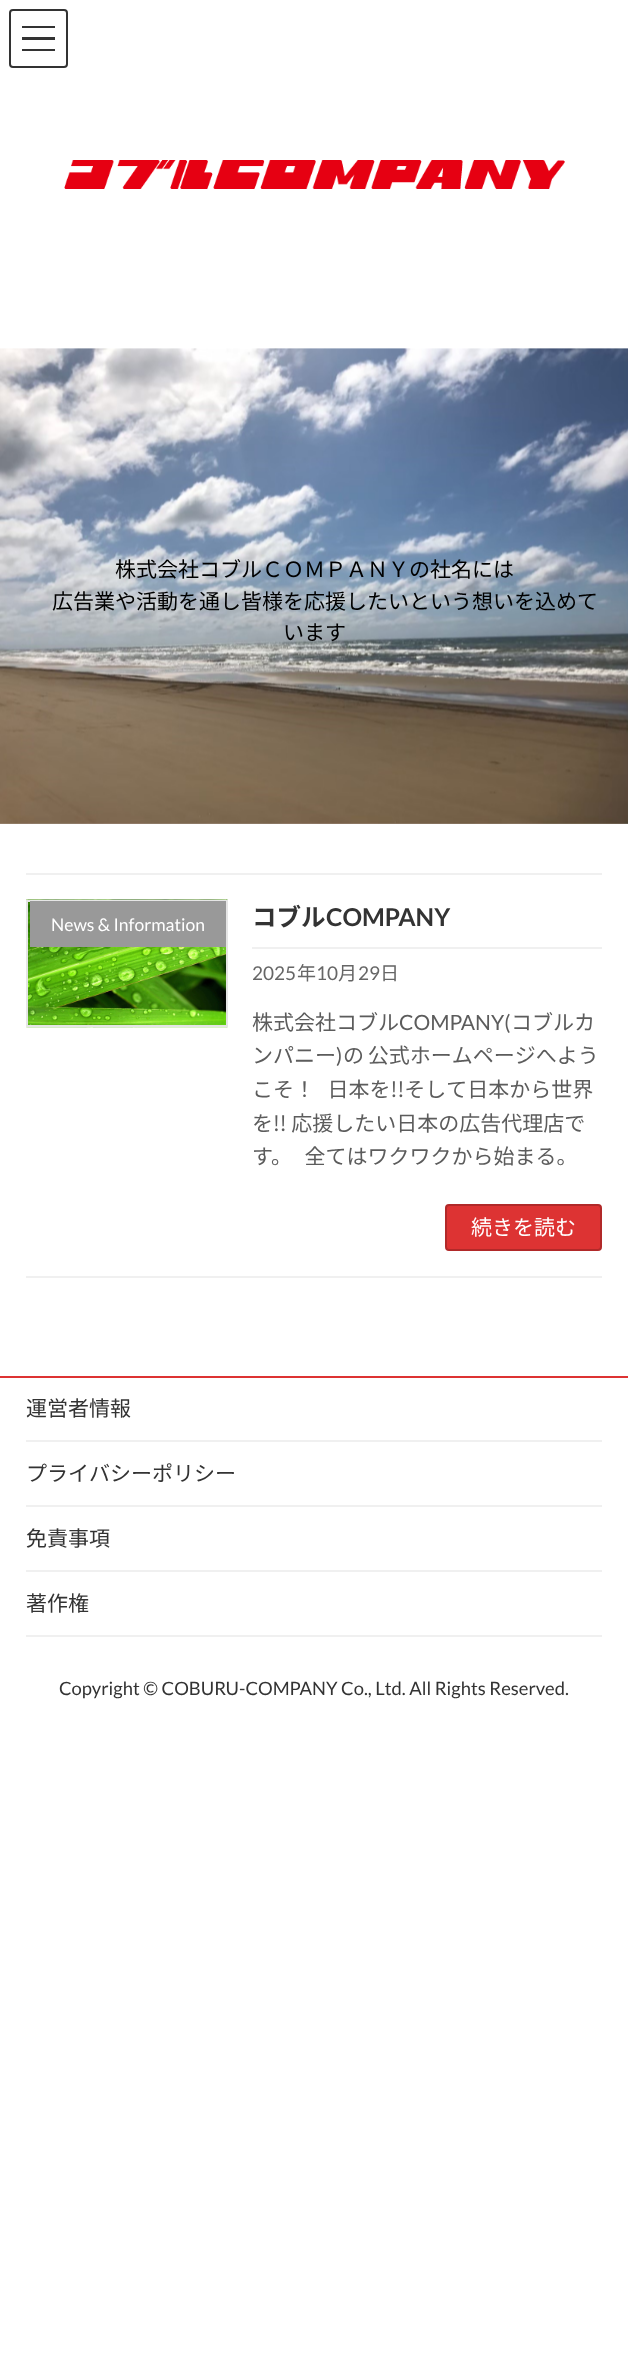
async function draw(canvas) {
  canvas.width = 628
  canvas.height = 2373
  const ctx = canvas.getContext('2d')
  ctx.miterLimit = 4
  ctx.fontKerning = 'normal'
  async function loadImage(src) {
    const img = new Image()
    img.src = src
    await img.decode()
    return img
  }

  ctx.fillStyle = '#fff'
  ctx.fillRect(0, 0, 628, 2373)
  ctx.fillStyle = '#333'
  ctx.fillRect(22, 26, 33, 2)
  ctx.fillRect(22, 37, 33, 3)
  ctx.fillRect(22, 49, 33, 2)
  ctx.beginPath()
  ctx.roundRect(10, 10, 57, 57, 3)
  ctx.strokeStyle = '#333'
  ctx.lineWidth = 2
  ctx.stroke()
  ctx.drawImage(await loadImage('image0.png'), 64, 160, 501, 29)
  ctx.drawImage(await loadImage('image1.png'), 0, 348, 628, 476)
  ctx.font = '21px Noto Sans JP'
  ctx.fillStyle = '#000'
  ctx.fillText('株式会社コブルＣＯＭＰＡＮＹの社名には', 115, 577)
  ctx.fillText('広告業や活動を通し皆様を応援したいという想いを込めて', 52, 609)
  ctx.fillText('います', 283, 640)
  ctx.fillStyle = '#f0f0f0'
  ctx.fillRect(26, 873, 576, 2)
  ctx.fillRect(26, 1276, 576, 2)
  ctx.drawImage(await loadImage('image2.png'), 26, 899, 202, 129)
  ctx.strokeStyle = '#e5e5e5'
  ctx.strokeRect(27, 901, 200, 125)
  ctx.fillStyle = '#999'
  ctx.fillRect(30, 901, 196, 46)
  ctx.font = '17.5px Lato'
  ctx.fillStyle = '#fff'
  ctx.fillText('News & Information', 51, 931)
  ctx.fillStyle = '#f0f0f0'
  ctx.fillRect(252, 947, 350, 2)
  ctx.font = 'bold 24.5px Noto Sans JP'
  ctx.fillStyle = '#333'
  ctx.fillText('コブル', 252, 926)
  ctx.font = 'bold 24.5px Lato'
  ctx.fillText('COMPANY', 326, 926)
  ctx.font = '19px Lato'
  ctx.fillStyle = '#666'
  ctx.fillText('2025', 252, 980)
  ctx.font = '19px Noto Sans JP'
  ctx.fillText('年', 297, 980)
  ctx.font = '19px Lato'
  ctx.fillText('10', 316, 980)
  ctx.font = '19px Noto Sans JP'
  ctx.fillText('月', 338, 980)
  ctx.font = '19px Lato'
  ctx.fillText('29', 358, 980)
  ctx.font = '19px Noto Sans JP'
  ctx.fillText('日', 380, 980)
  ctx.font = '21px Noto Sans JP'
  ctx.fillStyle = '#5c5c5c'
  ctx.fillText('株式会社コブル', 252, 1030)
  ctx.font = '21px Lato'
  ctx.fillText('COMPANY(', 399, 1030)
  ctx.font = '21px Noto Sans JP'
  ctx.fillText('コブルカ', 511, 1030)
  ctx.fillText('ンパニー', 252, 1063)
  ctx.font = '21px Lato'
  ctx.fillText(')', 336, 1063)
  ctx.wordSpacing = '-1px'
  ctx.font = '21px Noto Sans JP'
  ctx.fillText('の 公式ホームページへよう', 343, 1063)
  ctx.wordSpacing = '-0.5px'
  ctx.fillText('こそ！   日本を!!そして日本から世界', 252, 1097)
  ctx.wordSpacing = '0px'
  ctx.fillText('を!! 応援したい日本の広告代理店で', 252, 1131)
  ctx.wordSpacing = '-0.5px'
  ctx.fillText('す。   全てはワクワクから始まる。', 252, 1164)
  ctx.fillStyle = '#d33'
  ctx.beginPath()
  ctx.roundRect(446, 1205, 155, 45, 3)
  ctx.fill()
  ctx.strokeStyle = '#b12929'
  ctx.stroke()
  ctx.wordSpacing = '0px'
  ctx.fillStyle = '#fff'
  ctx.fillText('続きを読む', 471, 1235)
  ctx.fillStyle = '#d33'
  ctx.fillRect(0, 1376, 628, 2)
  ctx.fillStyle = '#f0f0f0'
  ctx.fillRect(26, 1440, 576, 2)
  ctx.fillStyle = '#333'
  ctx.fillText('運営者情報', 26, 1416)
  ctx.fillStyle = '#f0f0f0'
  ctx.fillRect(26, 1505, 576, 2)
  ctx.fillStyle = '#333'
  ctx.fillText('プライバシーポリシー', 26, 1481)
  ctx.fillStyle = '#f0f0f0'
  ctx.fillRect(26, 1570, 576, 2)
  ctx.fillStyle = '#333'
  ctx.fillText('免責事項', 26, 1546)
  ctx.fillStyle = '#f0f0f0'
  ctx.fillRect(26, 1635, 576, 2)
  ctx.fillStyle = '#333'
  ctx.fillText('著作権', 26, 1611)
  ctx.font = '18.4px Lato'
  ctx.fillText('Copyright © COBURU-COMPANY Co., Ltd. All Rights Reserved.', 59, 1695)
}

draw(document.querySelector('canvas'))
